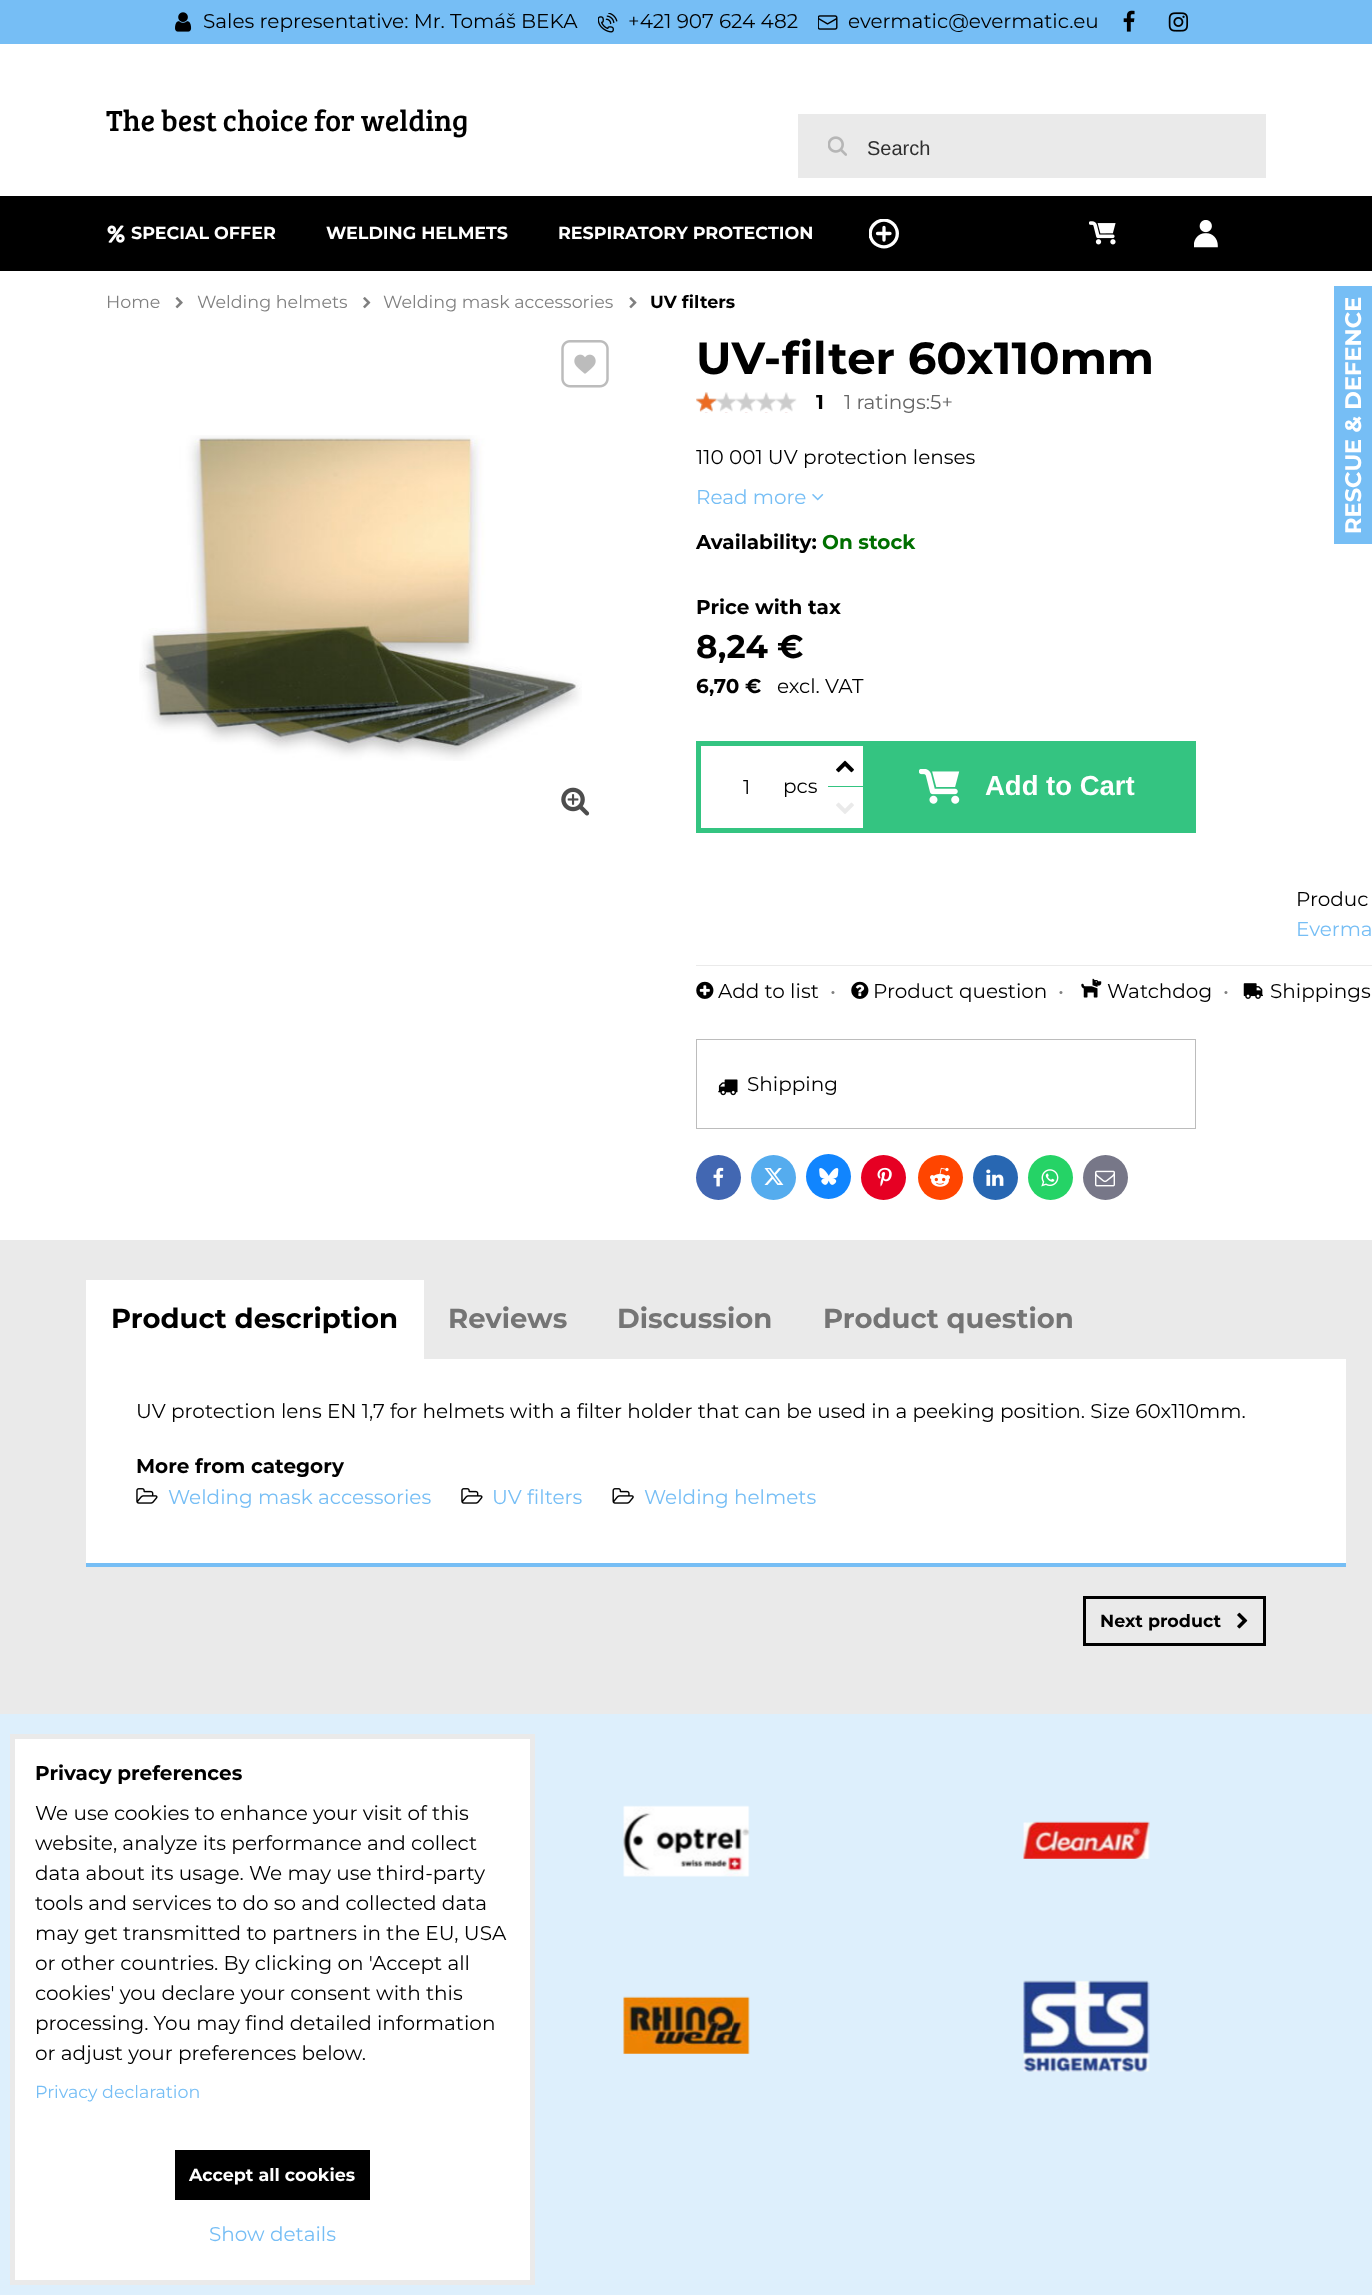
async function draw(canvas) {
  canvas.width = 1372
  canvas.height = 2295
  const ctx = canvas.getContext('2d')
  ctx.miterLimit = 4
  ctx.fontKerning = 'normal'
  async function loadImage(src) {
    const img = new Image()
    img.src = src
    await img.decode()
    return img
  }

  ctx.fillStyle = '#fff'
  ctx.fillRect(0, 0, 1372, 2295)
  ctx.fillStyle = '#000'
  ctx.fillRect(0, 196, 1372, 75)
  ctx.fillStyle = '#76bef5'
  ctx.fillRect(0, 0, 1372, 44)
  ctx.drawImage(await loadImage('image0.png'), 175, 12, 17, 20)
  ctx.font = '100 20px "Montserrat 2"'
  ctx.fillStyle = '#000'
  ctx.fillText('Sales representative: Mr. Tomáš BEKA', 203, 28)
  ctx.drawImage(await loadImage('image1.png'), 598, 13, 20, 20)
  ctx.fillText('+421 907 624 482', 628, 28)
  ctx.drawImage(await loadImage('image2.png'), 818, 15, 20, 15)
  ctx.fillText('evermatic@evermatic.eu', 848, 28)
  ctx.drawImage(await loadImage('image3.png'), 1123, 10, 12, 22)
  ctx.drawImage(await loadImage('image4.png'), 1168, 12, 21, 20)
  ctx.font = '30px Bree Serif'
  ctx.fillText('The best choice for welding', 106, 131)
  ctx.fillStyle = '#eaeaea'
  ctx.fillRect(798, 114, 468, 64)
  ctx.drawImage(await loadImage('image5.png'), 828, 136, 19, 20)
  ctx.font = '20px Liberation Sans'
  ctx.fillStyle = '#2f2f2f'
  ctx.fillText('Search', 867, 155)
  ctx.drawImage(await loadImage('image6.png'), 107, 225, 18, 18)
  ctx.font = '100 17.5px Montserrat'
  ctx.fillStyle = '#fff'
  ctx.fillText('SPECIAL OFFER', 131, 239)
  ctx.fillText('WELDING HELMETS', 326, 239)
  ctx.fillText('RESPIRATORY PROTECTION', 558, 239)
  ctx.beginPath()
  ctx.moveTo(884, 227.5)
  ctx.lineTo(884, 240)
  ctx.moveTo(890, 233.5)
  ctx.lineTo(877.5, 233.5)
  ctx.strokeStyle = '#fff'
  ctx.lineWidth = 3.3
  ctx.lineCap = 'round'
  ctx.stroke()
  ctx.save()
  ctx.beginPath()
  ctx.rect(869, 219, 30, 30)
  ctx.clip()
  ctx.beginPath()
  ctx.moveTo(868.5, 233.5)
  ctx.bezierCurveTo(868.5, 225.5, 875.5, 218.5, 884, 218.5)
  ctx.bezierCurveTo(892, 218.5, 899, 225.5, 899, 233.5)
  ctx.bezierCurveTo(899, 242, 892, 248.5, 884, 248.5)
  ctx.bezierCurveTo(875.5, 248.5, 868.5, 242, 868.5, 233.5)
  ctx.closePath()
  ctx.clip()
  ctx.beginPath()
  ctx.moveTo(868.5, 233.5)
  ctx.bezierCurveTo(868.5, 225.5, 875.5, 218.5, 884, 218.5)
  ctx.bezierCurveTo(892, 218.5, 899, 225.5, 899, 233.5)
  ctx.bezierCurveTo(899, 242, 892, 248.5, 884, 248.5)
  ctx.bezierCurveTo(875.5, 248.5, 868.5, 242, 868.5, 233.5)
  ctx.closePath()
  ctx.lineWidth = 6.7
  ctx.lineCap = 'butt'
  ctx.stroke()
  ctx.restore()
  ctx.drawImage(await loadImage('image7.png'), 1089, 221, 27, 24)
  ctx.drawImage(await loadImage('image8.png'), 1194, 220, 24, 28)
  ctx.font = '100 17.5px "Montserrat 2"'
  ctx.fillStyle = '#808080'
  ctx.fillText('Home', 106, 308)
  ctx.drawImage(await loadImage('image9.png'), 175, 297, 8, 12)
  ctx.fillText('Welding helmets', 197, 308)
  ctx.drawImage(await loadImage('image10.png'), 363, 297, 8, 12)
  ctx.fillText('Welding mask accessories', 383, 308)
  ctx.drawImage(await loadImage('image11.png'), 629, 297, 8, 12)
  ctx.font = '100 17.5px Montserrat'
  ctx.fillStyle = '#000'
  ctx.fillText('UV filters', 650, 308)
  ctx.drawImage(await loadImage('image12.png'), 561, 340, 48, 48)
  ctx.drawImage(await loadImage('image13.png'), 139, 435, 443, 326)
  ctx.drawImage(await loadImage('image14.png'), 561, 787, 29, 29)
  ctx.font = '100 45px Montserrat'
  ctx.fillText('UV-filter 60x110mm', 696, 374)
  ctx.drawImage(await loadImage('image15.png'), 696, 392, 101, 21)
  ctx.drawImage(await loadImage('image16.png'), 696, 392, 21, 20)
  ctx.font = '100 20px Montserrat'
  ctx.fillText('1', 816, 409)
  ctx.font = '100 20px "Montserrat 2"'
  ctx.fillStyle = '#666'
  ctx.fillText('1 ratings:5+', 844, 409)
  ctx.fillStyle = '#000'
  ctx.fillText('110 001 UV protection lenses', 696, 464)
  ctx.fillStyle = '#76bef5'
  ctx.fillText('Read more', 696, 504)
  ctx.drawImage(await loadImage('image17.png'), 812, 494, 12, 7)
  ctx.font = '100 20px Montserrat'
  ctx.fillStyle = '#000'
  ctx.fillText('Availability:', 696, 549)
  ctx.fillStyle = '#007000'
  ctx.fillText('On stock', 822, 549)
  ctx.fillStyle = '#000'
  ctx.fillText('Price with tax', 696, 614)
  ctx.font = '100 32.5px Montserrat'
  ctx.fillText('8,24 €', 696, 658)
  ctx.font = '100 20px Montserrat'
  ctx.fillText('6,70 €', 696, 693)
  ctx.font = '100 20px "Montserrat 2"'
  ctx.fillText('excl. VAT', 777, 693)
  ctx.fillStyle = '#34c481'
  ctx.fillRect(696, 741, 500, 92)
  ctx.fillStyle = '#fff'
  ctx.fillRect(701, 746, 162, 82)
  ctx.fillStyle = '#000'
  ctx.fillText('1', 743, 794)
  ctx.fillText('pcs', 783, 793)
  ctx.fillStyle = '#34c481'
  ctx.fillRect(828, 786, 35, 1)
  ctx.drawImage(await loadImage('image18.png'), 836, 760, 18, 13)
  ctx.drawImage(await loadImage('image19.png'), 836, 802, 18, 12)
  ctx.drawImage(await loadImage('image20.png'), 919, 769, 41, 35)
  ctx.font = 'bold 27.5px Liberation Sans'
  ctx.fillStyle = '#fff'
  ctx.fillText('Add to Cart', 985, 795)
  ctx.font = '100 20px "Montserrat 2"'
  ctx.fillStyle = '#000'
  ctx.fillText('Produc', 1296, 906)
  ctx.fillStyle = '#76bef5'
  ctx.fillText('Everma', 1296, 936)
  ctx.fillStyle = '#eaeaea'
  ctx.fillRect(696, 965, 676, 1)
  ctx.drawImage(await loadImage('image21.png'), 696, 981, 18, 18)
  ctx.fillStyle = '#000'
  ctx.fillText('Add to list', 718, 998)
  ctx.fillStyle = '#808080'
  ctx.fillText('•', 830, 998)
  ctx.drawImage(await loadImage('image22.png'), 851, 981, 18, 18)
  ctx.fillStyle = '#000'
  ctx.fillText('Product question', 873, 998)
  ctx.fillStyle = '#808080'
  ctx.fillText('•', 1058, 998)
  ctx.drawImage(await loadImage('image23.png'), 1081, 978, 21, 20)
  ctx.fillStyle = '#000'
  ctx.fillText('Watchdog', 1107, 998)
  ctx.fillStyle = '#808080'
  ctx.fillText('•', 1223, 998)
  ctx.drawImage(await loadImage('image24.png'), 1243, 983, 20, 16)
  ctx.fillStyle = '#000'
  ctx.fillText('Shippings', 1270, 998)
  ctx.strokeStyle = '#bcbcbc'
  ctx.lineWidth = 1
  ctx.strokeRect(696.5, 1039.5, 499, 89)
  ctx.drawImage(await loadImage('image25.png'), 718, 1079, 20, 17)
  ctx.fillText('Shipping', 747, 1091)
  ctx.fillStyle = '#4267b2'
  ctx.beginPath()
  ctx.arc(718.5, 1177.5, 22.5, 0, 2 * Math.PI)
  ctx.fill()
  ctx.drawImage(await loadImage('image26.png'), 713, 1167, 11, 20)
  ctx.fillStyle = '#55acee'
  ctx.beginPath()
  ctx.arc(773.5, 1177.5, 22.5, 0, 2 * Math.PI)
  ctx.fill()
  ctx.drawImage(await loadImage('image27.png'), 764, 1168, 20, 17)
  ctx.fillStyle = '#1185fe'
  ctx.beginPath()
  ctx.arc(828.5, 1176.5, 22.5, 0, 2 * Math.PI)
  ctx.fill()
  ctx.drawImage(await loadImage('image28.png'), 819, 1168, 20, 17)
  ctx.fillStyle = '#e60023'
  ctx.beginPath()
  ctx.arc(883.5, 1177.5, 22.5, 0, 2 * Math.PI)
  ctx.fill()
  ctx.drawImage(await loadImage('image29.png'), 877, 1167, 15, 20)
  ctx.fillStyle = '#ff4500'
  ctx.beginPath()
  ctx.arc(940.5, 1177.5, 22.5, 0, 2 * Math.PI)
  ctx.fill()
  ctx.drawImage(await loadImage('image30.png'), 930, 1167, 20, 20)
  ctx.fillStyle = '#2867b2'
  ctx.beginPath()
  ctx.arc(995.5, 1177.5, 22.5, 0, 2 * Math.PI)
  ctx.fill()
  ctx.drawImage(await loadImage('image31.png'), 986, 1169, 18, 17)
  ctx.fillStyle = '#25d366'
  ctx.beginPath()
  ctx.arc(1050.5, 1177.5, 22.5, 0, 2 * Math.PI)
  ctx.fill()
  ctx.drawImage(await loadImage('image32.png'), 1041, 1169, 18, 18)
  ctx.fillStyle = '#778'
  ctx.beginPath()
  ctx.arc(1105.5, 1177.5, 22.5, 0, 2 * Math.PI)
  ctx.fill()
  ctx.drawImage(await loadImage('image33.png'), 1095, 1170, 20, 17)
  ctx.fillStyle = '#eaeaea'
  ctx.fillRect(0, 1240, 1372, 474)
  ctx.fillStyle = '#fff'
  ctx.fillRect(86, 1280, 338, 79)
  ctx.font = '100 27.5px Montserrat'
  ctx.fillStyle = '#000'
  ctx.fillText('Product description', 111, 1328)
  ctx.fillStyle = '#757575'
  ctx.fillText('Reviews', 448, 1328)
  ctx.fillText('Discussion', 617, 1328)
  ctx.fillText('Product question', 823, 1328)
  ctx.fillStyle = '#fff'
  ctx.fillRect(86, 1359, 1260, 204)
  ctx.fillStyle = '#76bef5'
  ctx.fillRect(86, 1563, 1260, 4)
  ctx.font = '100 20px "Montserrat 2"'
  ctx.fillStyle = '#000'
  ctx.fillText('UV protection lens EN 1,7 for helmets with a filter holder that can be used in a peeking position. Size 60x110mm.', 136, 1418)
  ctx.font = '100 20px Montserrat'
  ctx.fillText('More from category', 136, 1473)
  ctx.drawImage(await loadImage('image34.png'), 136, 1488, 22, 16)
  ctx.font = '100 20px "Montserrat 2"'
  ctx.fillStyle = '#76bef5'
  ctx.fillText('Welding mask accessories', 168, 1504)
  ctx.drawImage(await loadImage('image34.png'), 461, 1488, 22, 16)
  ctx.fillText('UV filters', 492, 1504)
  ctx.drawImage(await loadImage('image35.png'), 612, 1488, 22, 16)
  ctx.fillText('Welding helmets', 644, 1504)
  ctx.strokeStyle = '#000'
  ctx.lineWidth = 3
  ctx.strokeRect(1084.5, 1597.5, 180, 47)
  ctx.font = '100 17.5px Montserrat'
  ctx.fillStyle = '#000'
  ctx.fillText('Next product', 1100, 1627)
  ctx.drawImage(await loadImage('image36.png'), 1237, 1612, 11, 17)
  ctx.fillStyle = '#76bef5'
  ctx.fillRect(1334, 286, 38, 258)
  ctx.font = '100 22.5px Montserrat'
  ctx.fillStyle = '#fff'
  ctx.save()
  ctx.translate(1361, 534)
  ctx.rotate(-90 * Math.PI / 180)
  ctx.fillText('RESCUE & DEFENCE', 0, 0)
  ctx.restore()
  ctx.fillStyle = '#ddeffc'
  ctx.fillRect(0, 1714, 1372, 581)
  ctx.drawImage(await loadImage('image37.png'), 623, 1805, 127, 72)
  ctx.drawImage(await loadImage('image38.png'), 1023, 1821, 127, 38)
  ctx.drawImage(await loadImage('image39.png'), 623, 1996, 127, 58)
  ctx.drawImage(await loadImage('image40.png'), 1023, 1980, 127, 92)
  ctx.strokeStyle = '#eaeaea'
  ctx.lineWidth = 5
  ctx.strokeRect(12.5, 1736.5, 520, 546)
  ctx.fillStyle = '#fff'
  ctx.fillRect(15, 1739, 515, 541)
  ctx.font = '100 20px Montserrat'
  ctx.fillStyle = '#000'
  ctx.fillText('Privacy preferences', 35, 1780)
  ctx.font = '100 20px "Montserrat 2"'
  ctx.fillText('We use cookies to enhance your visit of this', 35, 1820)
  ctx.fillText('website, analyze its performance and collect', 35, 1850)
  ctx.fillText('data about its usage. We may use third-party', 35, 1880)
  ctx.fillText('tools and services to do so and collected data', 35, 1910)
  ctx.fillText('may get transmitted to partners in the EU, USA', 35, 1940)
  ctx.fillText('or other countries. By clicking on \'Accept all', 35, 1970)
  ctx.fillText('cookies\' you declare your consent with this', 35, 2000)
  ctx.fillText('processing. You may find detailed information', 35, 2030)
  ctx.fillText('or adjust your preferences below.', 35, 2060)
  ctx.font = '100 17.5px "Montserrat 2"'
  ctx.fillStyle = '#76bef5'
  ctx.fillText('Privacy declaration', 35, 2098)
  ctx.fillStyle = '#000'
  ctx.fillRect(175, 2150, 195, 50)
  ctx.font = '100 17.5px Montserrat'
  ctx.fillStyle = '#fff'
  ctx.fillText('Accept all cookies', 189, 2181)
  ctx.font = '100 20px "Montserrat 2"'
  ctx.fillStyle = '#76bef5'
  ctx.fillText('Show details', 209, 2241)
}

draw(document.querySelector('canvas'))
